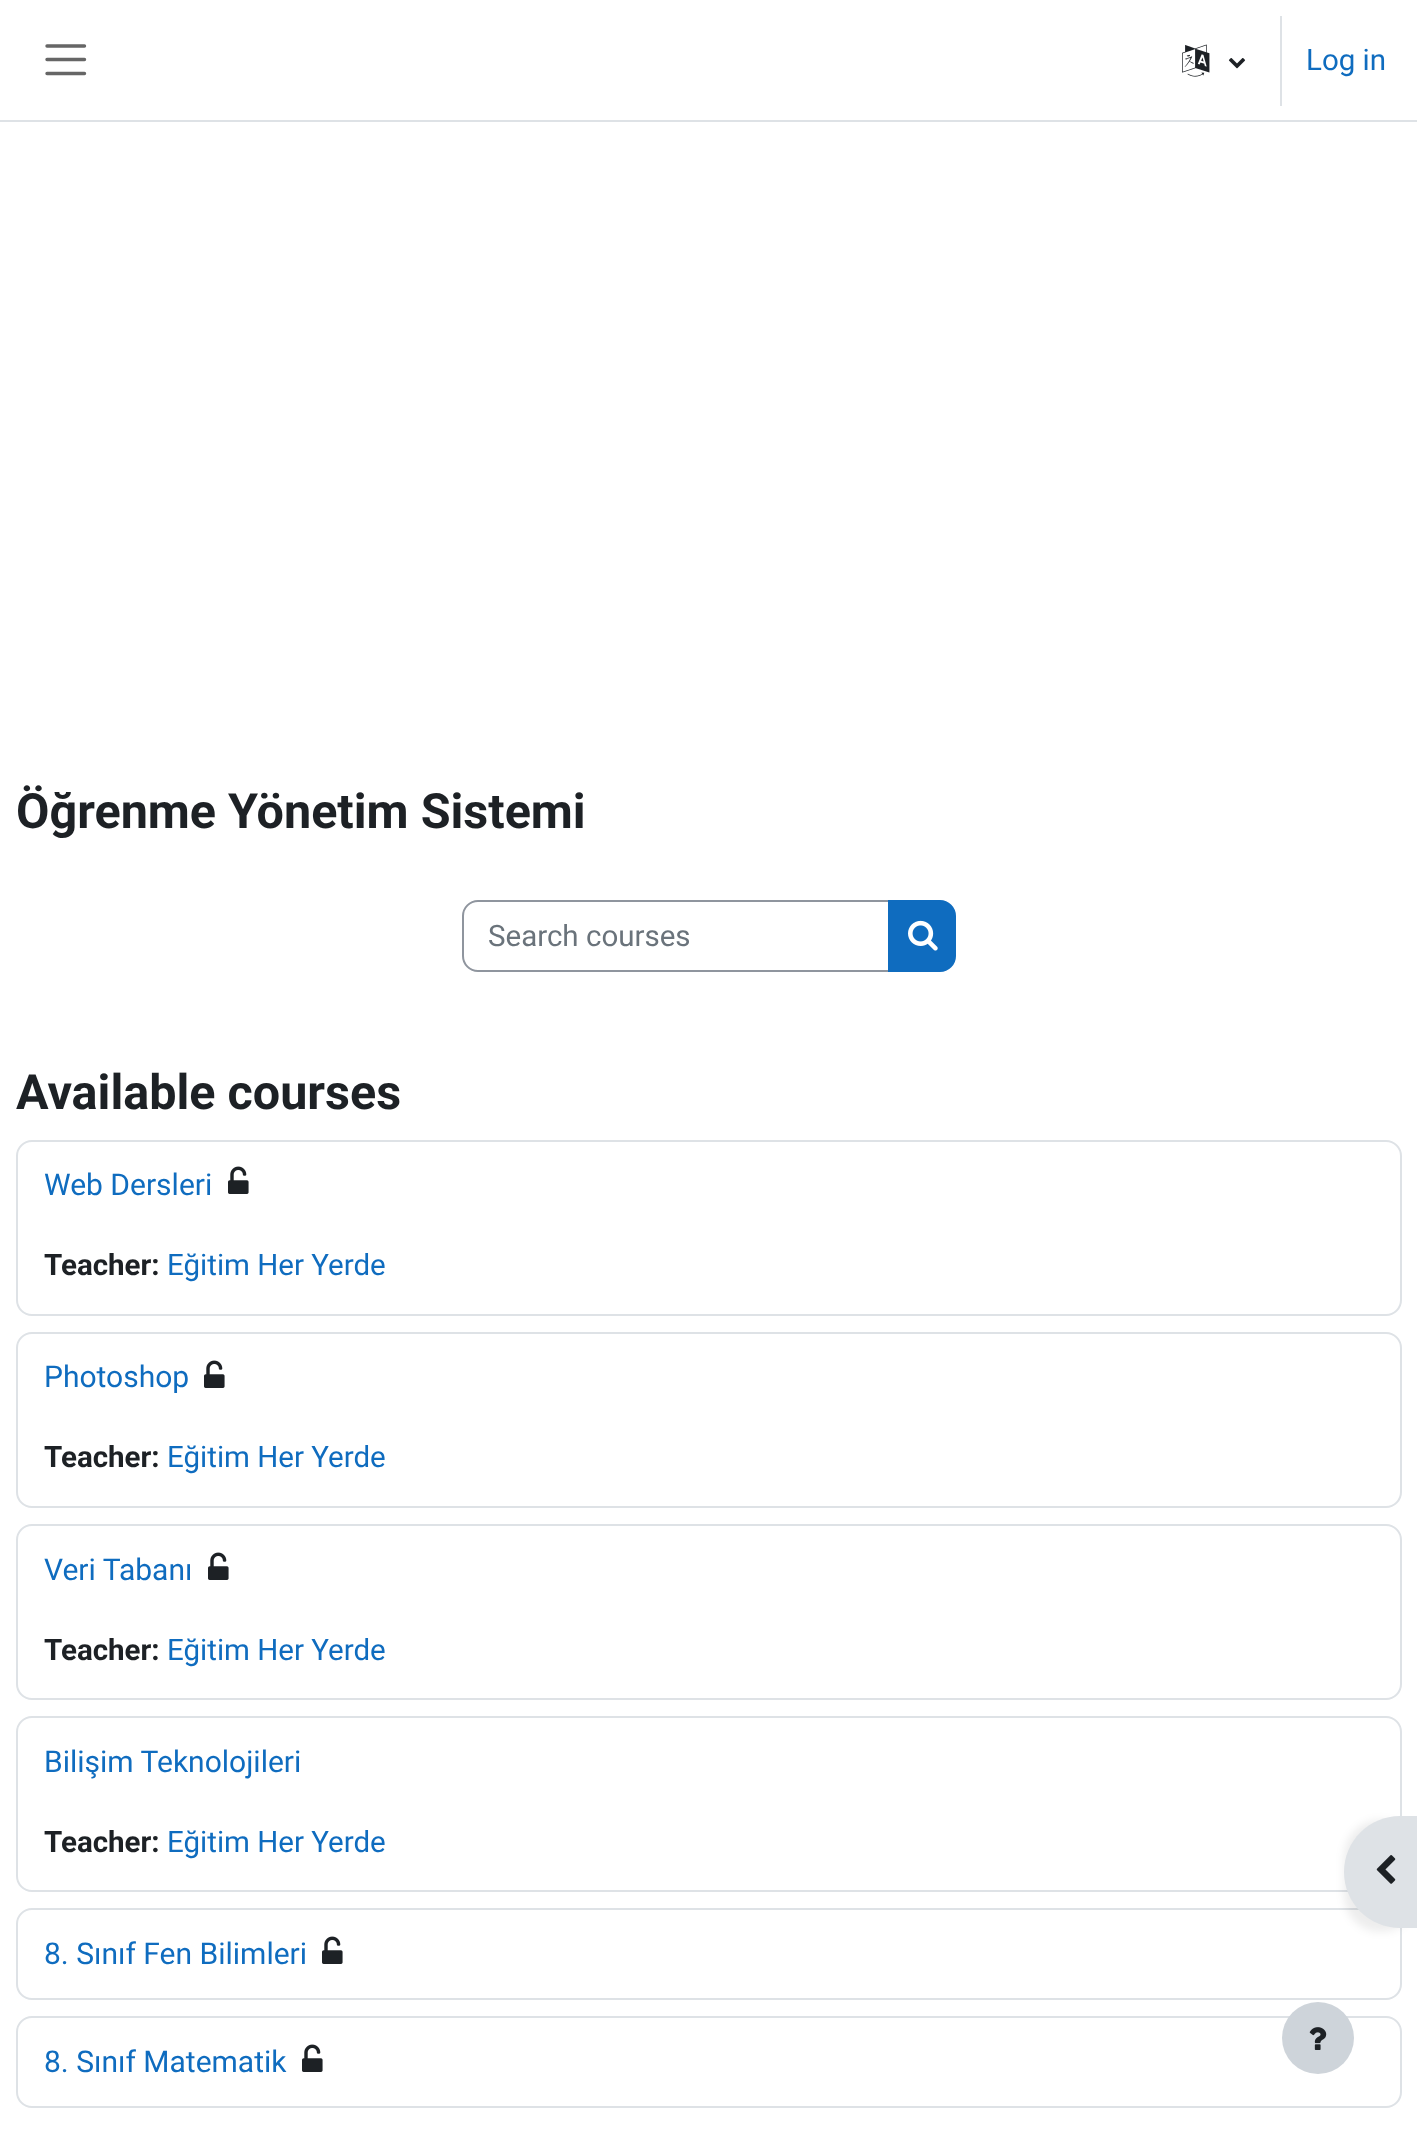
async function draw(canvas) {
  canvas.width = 1417
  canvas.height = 2138
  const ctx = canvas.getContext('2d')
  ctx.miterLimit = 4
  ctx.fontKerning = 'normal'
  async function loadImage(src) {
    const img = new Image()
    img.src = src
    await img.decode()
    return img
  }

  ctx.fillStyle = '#fff'
  ctx.fillRect(0, 0, 1417, 2138)
  ctx.fillStyle = '#dee2e6'
  ctx.fillRect(0, 120, 1417, 2)
  ctx.beginPath()
  ctx.moveTo(47, 46)
  ctx.lineTo(84.5, 46)
  ctx.moveTo(47, 59.5)
  ctx.lineTo(84.5, 59.5)
  ctx.moveTo(47, 73.5)
  ctx.lineTo(84.5, 73.5)
  ctx.strokeStyle = '#666'
  ctx.lineWidth = 3.4
  ctx.lineCap = 'round'
  ctx.stroke()
  ctx.drawImage(await loadImage('image0.png'), 1182, 44, 28, 33)
  ctx.drawImage(await loadImage('image1.png'), 1228, 58, 18, 11)
  ctx.fillRect(1280, 16, 2, 90)
  ctx.font = '29.5px Roboto'
  ctx.fillStyle = '#0f6cbf'
  ctx.fillText('Log in', 1306, 70)
  ctx.font = 'bold 48.5px Roboto'
  ctx.fillStyle = '#1d2125'
  ctx.fillText('Öğrenme Yönetim Sistemi', 16, 828)
  ctx.beginPath()
  ctx.roundRect(463, 901, 426, 70, [15, 0, 0, 15])
  ctx.strokeStyle = '#8f959e'
  ctx.lineWidth = 2
  ctx.stroke()
  ctx.font = '29.5px Roboto'
  ctx.fillStyle = '#6a737b'
  ctx.fillText('Search courses', 488, 946)
  ctx.fillStyle = '#0f6cbf'
  ctx.beginPath()
  ctx.roundRect(889, 901, 66, 70, [0, 15, 15, 0])
  ctx.fill()
  ctx.strokeStyle = '#0f6cbf'
  ctx.stroke()
  ctx.drawImage(await loadImage('image2.png'), 908, 920, 30, 31)
  ctx.font = 'bold 48.5px Roboto'
  ctx.fillStyle = '#1d2125'
  ctx.fillText('Available courses', 16, 1109)
  ctx.beginPath()
  ctx.roundRect(17, 1141, 1384, 174, 15)
  ctx.strokeStyle = '#dee2e6'
  ctx.stroke()
  ctx.font = '30px Roboto'
  ctx.fillStyle = '#0f6cbf'
  ctx.fillText('Web Dersleri', 44, 1195)
  ctx.drawImage(await loadImage('image3.png'), 228, 1166, 21, 28)
  ctx.font = 'bold 29.5px Roboto'
  ctx.fillStyle = '#1d2125'
  ctx.fillText('Teacher:', 44, 1275)
  ctx.font = '29.5px Roboto'
  ctx.fillStyle = '#0f6cbf'
  ctx.fillText('Eğitim Her Yerde', 167, 1275)
  ctx.beginPath()
  ctx.roundRect(17, 1333, 1384, 174, 15)
  ctx.stroke()
  ctx.font = '30px Roboto'
  ctx.fillText('Photoshop', 44, 1387)
  ctx.drawImage(await loadImage('image3.png'), 204, 1360, 21, 28)
  ctx.font = 'bold 29.5px Roboto'
  ctx.fillStyle = '#1d2125'
  ctx.fillText('Teacher:', 44, 1467)
  ctx.font = '29.5px Roboto'
  ctx.fillStyle = '#0f6cbf'
  ctx.fillText('Eğitim Her Yerde', 167, 1467)
  ctx.beginPath()
  ctx.roundRect(17, 1525, 1384, 174, 15)
  ctx.stroke()
  ctx.font = '30px Roboto'
  ctx.fillText('Veri Tabanı', 44, 1580)
  ctx.drawImage(await loadImage('image3.png'), 208, 1552, 21, 28)
  ctx.font = 'bold 29.5px Roboto'
  ctx.fillStyle = '#1d2125'
  ctx.fillText('Teacher:', 44, 1660)
  ctx.font = '29.5px Roboto'
  ctx.fillStyle = '#0f6cbf'
  ctx.fillText('Eğitim Her Yerde', 167, 1660)
  ctx.beginPath()
  ctx.roundRect(17, 1717, 1384, 174, 15)
  ctx.stroke()
  ctx.font = '30px Roboto'
  ctx.fillText('Bilişim Teknolojileri', 44, 1772)
  ctx.font = 'bold 29.5px Roboto'
  ctx.fillStyle = '#1d2125'
  ctx.fillText('Teacher:', 44, 1852)
  ctx.font = '29.5px Roboto'
  ctx.fillStyle = '#0f6cbf'
  ctx.fillText('Eğitim Her Yerde', 167, 1852)
  ctx.beginPath()
  ctx.roundRect(17, 1909, 1384, 90, 15)
  ctx.stroke()
  ctx.font = '30px Roboto'
  ctx.fillText('8. Sınıf Fen Bilimleri', 44, 1964)
  ctx.drawImage(await loadImage('image3.png'), 322, 1936, 21, 28)
  ctx.beginPath()
  ctx.roundRect(17, 2017, 1384, 90, 15)
  ctx.stroke()
  ctx.fillText('8. Sınıf Matematik', 44, 2072)
  ctx.drawImage(await loadImage('image3.png'), 302, 2044, 21, 28)
  ctx.fillStyle = '#00000012'
  ctx.filter = 'blur(4px)'
  ctx.beginPath()
  ctx.roundRect(1344, 1820, 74, 112, 56)
  ctx.fill()
  ctx.filter = 'none'
  ctx.fillStyle = '#dee2e6'
  ctx.beginPath()
  ctx.moveTo(1400, 1816)
  ctx.lineTo(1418, 1816)
  ctx.lineTo(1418, 1928)
  ctx.lineTo(1400, 1928)
  ctx.bezierCurveTo(1369, 1928, 1344, 1903, 1344, 1872)
  ctx.bezierCurveTo(1344, 1841, 1369, 1816, 1400, 1816)
  ctx.closePath()
  ctx.fill()
  ctx.drawImage(await loadImage('image4.png'), 1376, 1855, 20, 29)
  ctx.fillStyle = '#ced4da'
  ctx.beginPath()
  ctx.arc(1318, 2038, 36, 0, 2 * Math.PI)
  ctx.fill()
  ctx.drawImage(await loadImage('image5.png'), 1309, 2027, 18, 23)
}

draw(document.querySelector('canvas'))
